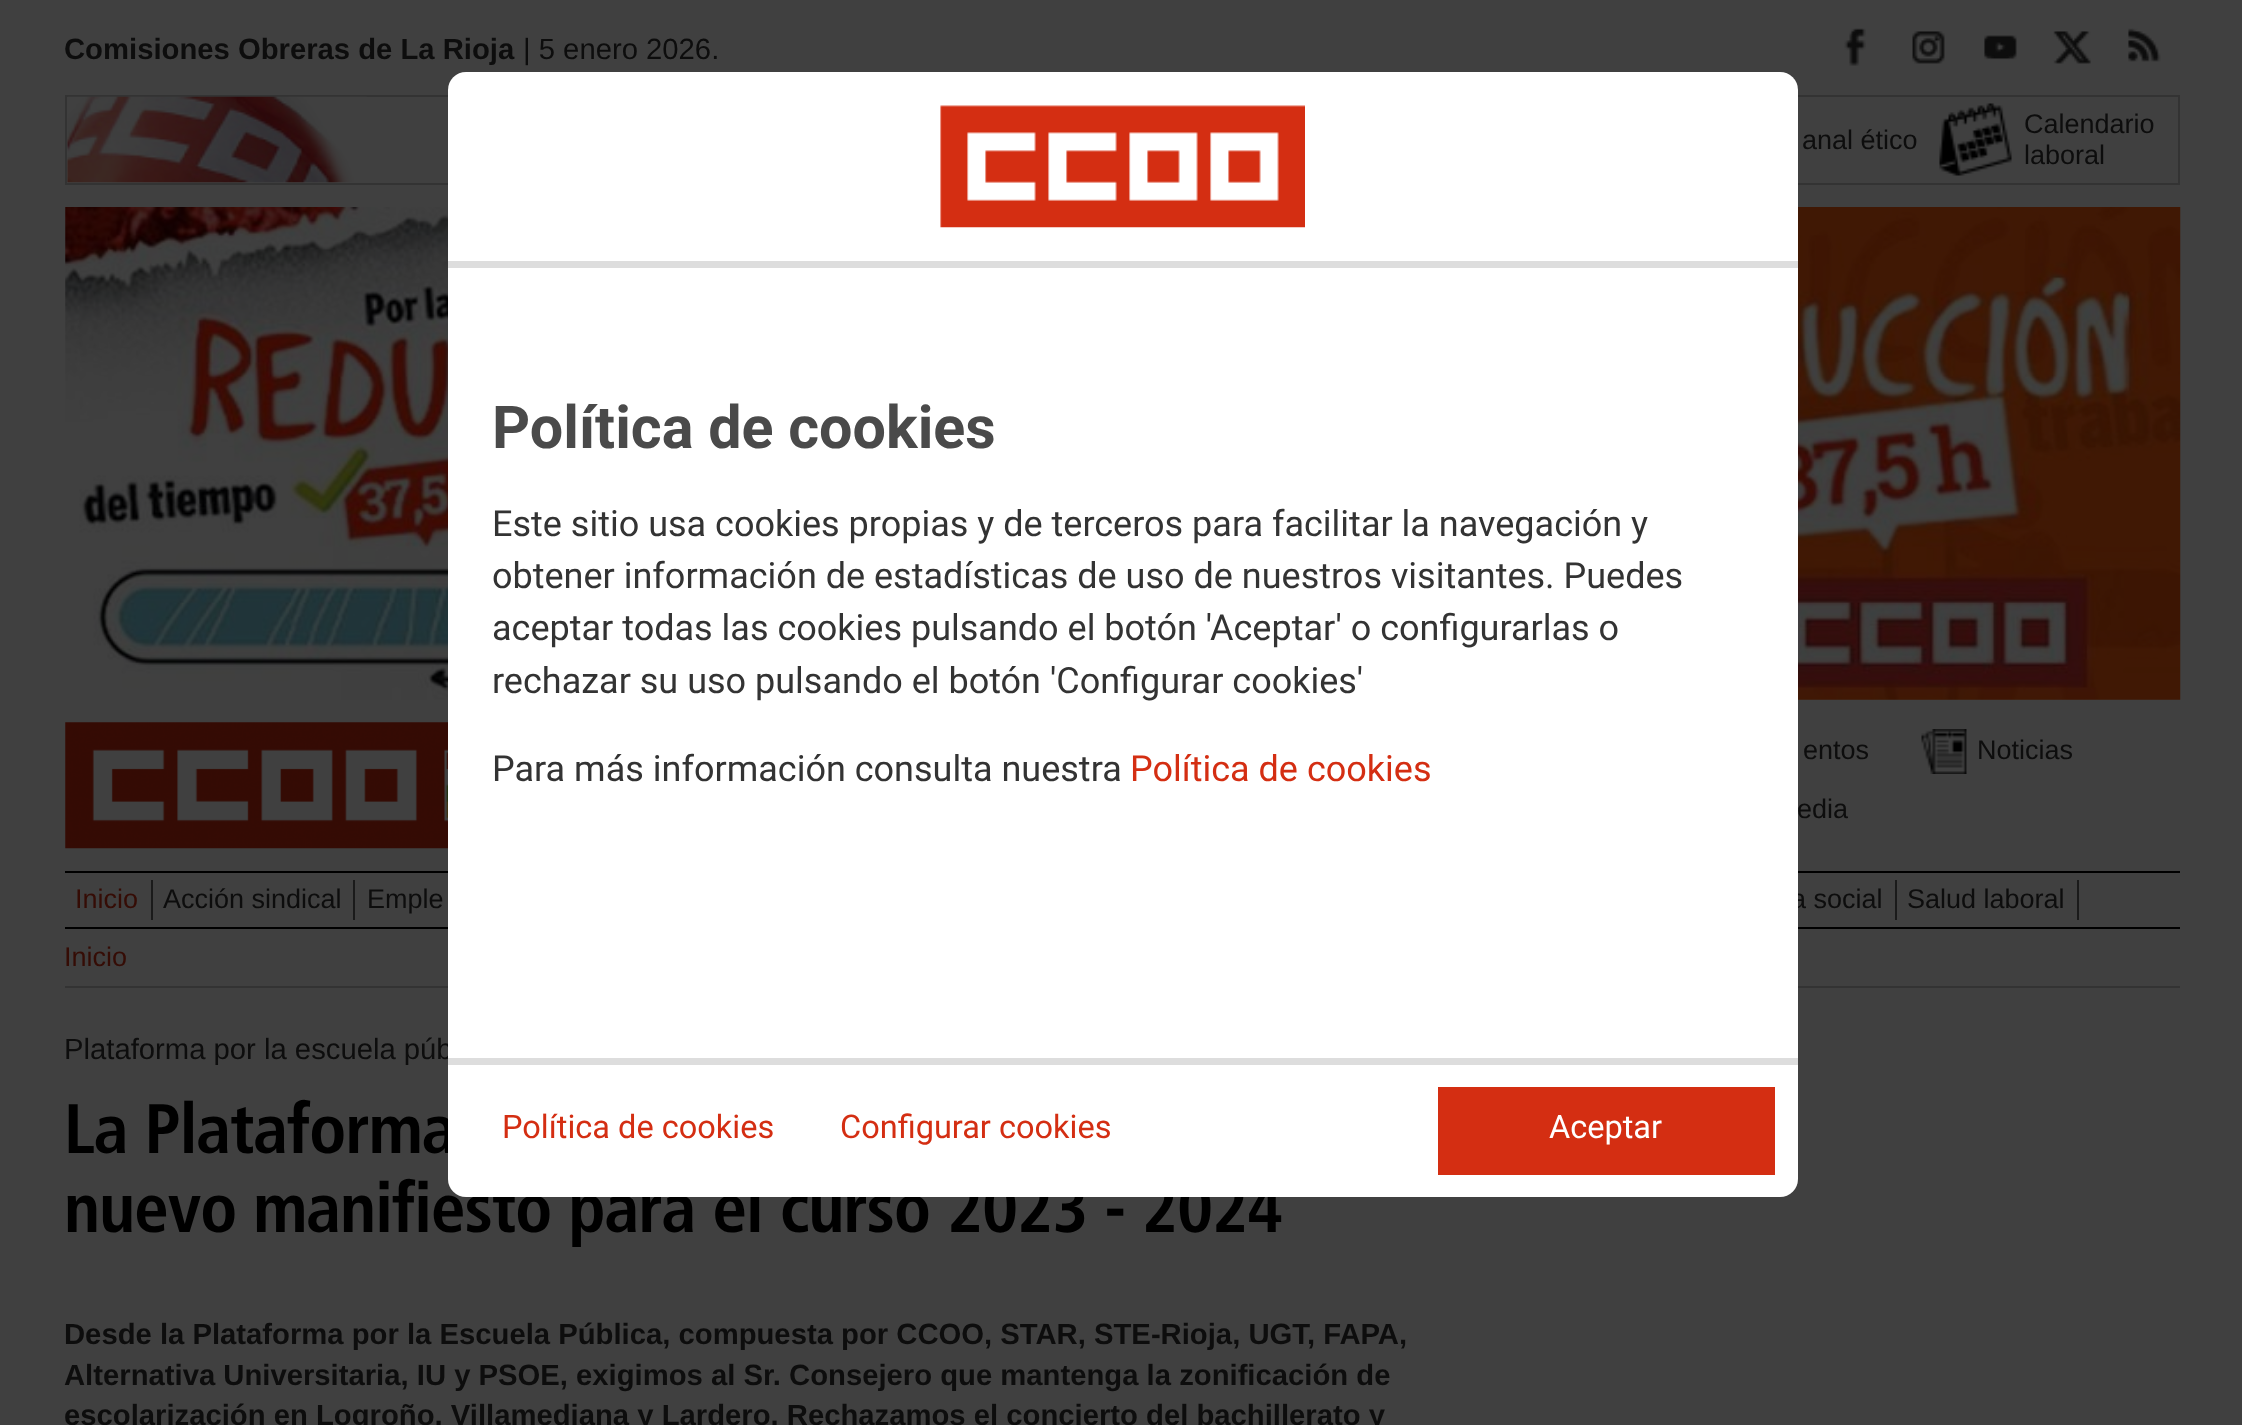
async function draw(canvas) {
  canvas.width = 2242
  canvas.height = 1425
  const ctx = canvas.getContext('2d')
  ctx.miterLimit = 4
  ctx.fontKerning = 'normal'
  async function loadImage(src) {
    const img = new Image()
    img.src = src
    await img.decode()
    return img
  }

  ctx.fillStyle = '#404040'
  ctx.fillRect(0, 0, 2242, 1425)
  ctx.font = 'bold 29.25px Liberation Sans'
  ctx.fillStyle = '#0d0d0d'
  ctx.fillText('Comisiones Obreras de La Rioja', 64, 59)
  ctx.font = '29.25px Liberation Sans'
  ctx.fillText('| 5 enero 2026.', 523, 59)
  ctx.drawImage(await loadImage('image0.png'), 1844, 28, 22, 38)
  ctx.drawImage(await loadImage('image1.png'), 1912, 31, 33, 33)
  ctx.drawImage(await loadImage('image2.png'), 1984, 35, 33, 25)
  ctx.drawImage(await loadImage('image3.png'), 2053, 31, 38, 33)
  ctx.drawImage(await loadImage('image4.png'), 2128, 28, 33, 34)
  ctx.strokeStyle = '#333'
  ctx.lineWidth = 2
  ctx.strokeRect(66, 96, 2113, 88)
  ctx.drawImage(await loadImage('image5.png'), 67, 96, 300, 87)
  ctx.font = '27px Liberation Sans'
  ctx.fillText('anal ético', 1802, 149)
  ctx.drawImage(await loadImage('image6.png'), 1939, 103, 73, 73)
  ctx.fillText('Calendario', 2024, 133)
  ctx.fillText('laboral', 2024, 164)
  ctx.drawImage(await loadImage('image7.png'), 65, 207, 2116, 493)
  ctx.drawImage(await loadImage('image8.png'), 65, 722, 383, 127)
  ctx.fillText('entos', 1803, 759)
  ctx.drawImage(await loadImage('image9.png'), 1921, 729, 46, 45)
  ctx.fillText('Noticias', 1977, 759)
  ctx.fillText('edia', 1797, 818)
  ctx.fillStyle = '#000'
  ctx.fillRect(65, 871, 2115, 2)
  ctx.fillRect(65, 927, 2115, 2)
  ctx.fillStyle = '#1a1a1a'
  ctx.fillRect(151, 880, 2, 40)
  ctx.fillStyle = '#350c05'
  ctx.fillText('Inicio', 75, 908)
  ctx.fillStyle = '#1a1a1a'
  ctx.fillRect(353, 880, 2, 40)
  ctx.fillStyle = '#0d0d0d'
  ctx.fillText('Acción sindical', 163, 908)
  ctx.fillText('Emple', 367, 908)
  ctx.fillStyle = '#1a1a1a'
  ctx.fillRect(1895, 880, 2, 40)
  ctx.fillStyle = '#0d0d0d'
  ctx.fillText('a social', 1791, 908)
  ctx.fillStyle = '#1a1a1a'
  ctx.fillRect(2077, 880, 2, 40)
  ctx.fillStyle = '#0d0d0d'
  ctx.fillText('Salud laboral', 1907, 908)
  ctx.fillStyle = '#333'
  ctx.fillRect(65, 986, 2115, 2)
  ctx.fillStyle = '#350c05'
  ctx.fillText('Inicio', 64, 966)
  ctx.font = '29.25px Liberation Sans'
  ctx.fillStyle = '#0d0d0d'
  ctx.fillText('Plataforma por la escuela púb', 64, 1059)
  ctx.letterSpacing = '-1.2px'
  ctx.font = 'bold 69.75px Frutiger'
  ctx.fillStyle = '#000'
  ctx.fillText('La Plataforma', 64, 1153)
  ctx.fillText('nuevo manifiesto para el curso 2023 - 2024', 64, 1232)
  ctx.letterSpacing = '0px'
  ctx.font = 'bold 29.25px Liberation Sans'
  ctx.fillStyle = '#0d0d0d'
  ctx.fillText('Desde la Plataforma por la Escuela Pública, compuesta por CCOO, STAR, STE-Rioja, UGT, FAPA,', 64, 1344)
  ctx.fillText('Alternativa Universitaria, IU y PSOE, exigimos al Sr. Consejero que mantenga la zonificación de', 64, 1385)
  ctx.fillText('escolarización en Logroño, Villamediana y Lardero. Rechazamos el concierto del bachillerato y', 64, 1425)
  ctx.fillStyle = '#fff'
  ctx.beginPath()
  ctx.roundRect(448, 72, 1350, 196, [18, 18, 0, 0])
  ctx.fill()
  ctx.fillStyle = '#ddd'
  ctx.fillRect(448, 261, 1350, 7)
  ctx.drawImage(await loadImage('image10.png'), 940, 105, 365, 123)
  ctx.fillStyle = '#fff'
  ctx.fillRect(448, 268, 1350, 790)
  ctx.font = 'bold 59.25px Roboto'
  ctx.fillStyle = '#4a4a4a'
  ctx.fillText('Política de cookies', 492, 448)
  ctx.font = '36px Roboto'
  ctx.fillStyle = '#333'
  ctx.fillText('Este sitio usa cookies propias y de terceros para facilitar la navegación y', 492, 536)
  ctx.fillText('obtener información de estadísticas de uso de nuestros visitantes. Puedes', 492, 588)
  ctx.fillText('aceptar todas las cookies pulsando el botón \'Aceptar\' o configurarlas o', 492, 640)
  ctx.fillText('rechazar su uso pulsando el botón \'Configurar cookies\'', 492, 693)
  ctx.fillText('Para más información consulta nuestra', 492, 781)
  ctx.fillStyle = '#d42e12'
  ctx.fillText('Política de cookies', 1130, 781)
  ctx.fillStyle = '#fff'
  ctx.beginPath()
  ctx.roundRect(448, 1058, 1350, 139, [0, 0, 18, 18])
  ctx.fill()
  ctx.fillStyle = '#ddd'
  ctx.fillRect(448, 1058, 1350, 7)
  ctx.font = '32.5px Roboto'
  ctx.fillStyle = '#d42e12'
  ctx.fillText('Política de cookies', 502, 1138)
  ctx.fillText('Configurar cookies', 840, 1138)
  ctx.fillRect(1438, 1087, 337, 88)
  ctx.fillStyle = '#fff'
  ctx.fillText('Aceptar', 1549, 1138)
}

draw(document.querySelector('canvas'))
